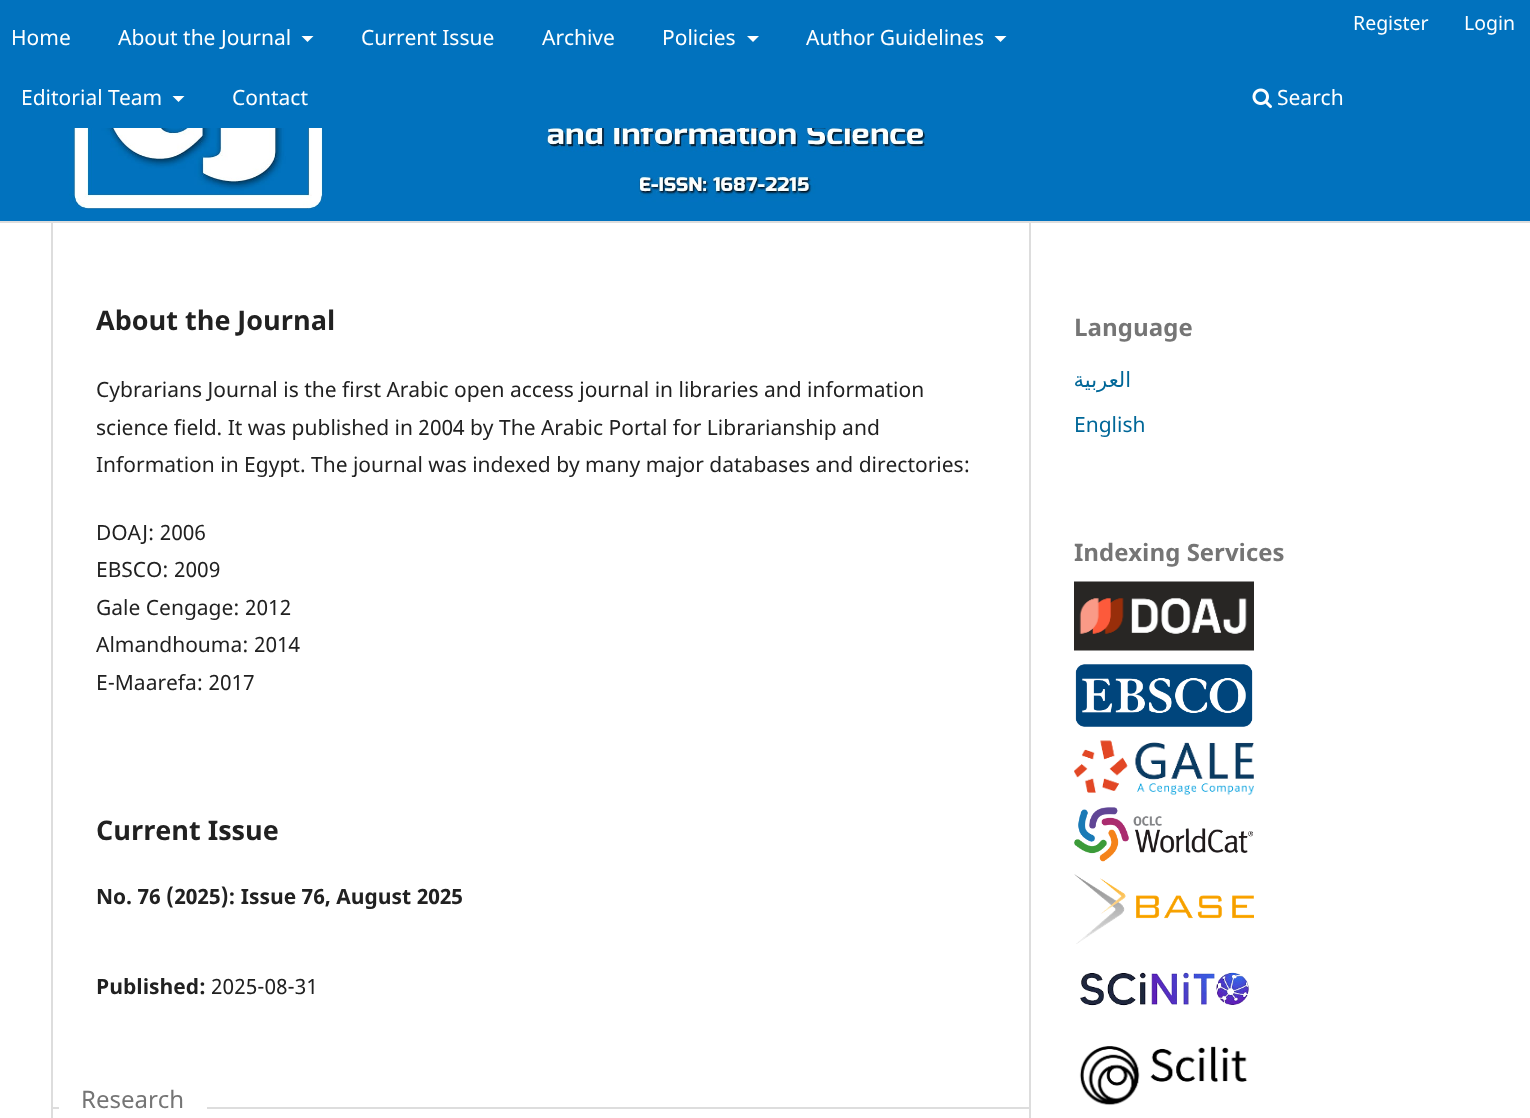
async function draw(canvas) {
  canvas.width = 1530
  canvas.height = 1118
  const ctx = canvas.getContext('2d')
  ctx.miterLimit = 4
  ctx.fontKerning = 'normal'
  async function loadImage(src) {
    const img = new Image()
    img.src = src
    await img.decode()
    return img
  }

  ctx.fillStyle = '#fff'
  ctx.fillRect(0, 0, 1530, 1118)
  ctx.fillStyle = '#0172be'
  ctx.fillRect(0, 0, 1530, 221)
  ctx.fillStyle = '#ddd'
  ctx.fillRect(0, 221, 1530, 2)
  ctx.font = '19.5px Noto Sans'
  ctx.fillStyle = '#fff'
  ctx.fillText('Register', 1353, 30)
  ctx.fillText('Login', 1464, 30)
  ctx.font = '21px Noto Sans'
  ctx.fillText('Home', 11, 45)
  ctx.fillText('About the Journal', 118, 45)
  ctx.beginPath()
  ctx.moveTo(301.5, 36)
  ctx.lineTo(313.5, 36)
  ctx.lineTo(307.5, 42)
  ctx.closePath()
  ctx.fill()
  ctx.fillText('Current Issue', 361, 45)
  ctx.fillText('Archive', 542, 45)
  ctx.fillText('Policies', 662, 45)
  ctx.beginPath()
  ctx.moveTo(747, 36)
  ctx.lineTo(759, 36)
  ctx.lineTo(753, 42)
  ctx.closePath()
  ctx.fill()
  ctx.fillText('Author Guidelines', 806, 45)
  ctx.beginPath()
  ctx.moveTo(994.5, 36)
  ctx.lineTo(1006.5, 36)
  ctx.lineTo(1000.5, 42)
  ctx.closePath()
  ctx.fill()
  ctx.fillText('Editorial Team', 21, 105)
  ctx.beginPath()
  ctx.moveTo(172.5, 96)
  ctx.lineTo(184.5, 96)
  ctx.lineTo(178.5, 102)
  ctx.closePath()
  ctx.fill()
  ctx.fillText('Contact', 232, 105)
  ctx.drawImage(await loadImage('image0.png'), 1252, 88, 20, 20)
  ctx.fillText('Search', 1277, 105)
  ctx.drawImage(await loadImage('image1.png'), 69, 128, 971, 82)
  ctx.fillStyle = '#ddd'
  ctx.fillRect(51, 222, 2, 896)
  ctx.font = 'bold 27px Noto Sans'
  ctx.fillStyle = '#212121'
  ctx.fillText('About the Journal', 96, 330)
  ctx.font = '21px Noto Sans'
  ctx.fillText('Cybrarians Journal is the first Arabic open access journal in libraries and information', 96, 397)
  ctx.fillText('science field. It was published in 2004 by The Arabic Portal for Librarianship and', 96, 435)
  ctx.fillText('Information in Egypt. The journal was indexed by many major databases and directories:', 96, 472)
  ctx.fillText('DOAJ: 2006', 96, 540)
  ctx.fillText('EBSCO: 2009', 96, 577)
  ctx.fillText('Gale Cengage: 2012', 96, 615)
  ctx.fillText('Almandhouma: 2014', 96, 652)
  ctx.fillText('E-Maarefa: 2017', 96, 690)
  ctx.font = 'bold 27px Noto Sans'
  ctx.fillText('Current Issue', 96, 840)
  ctx.font = 'bold 21px Noto Sans'
  ctx.fillText('No. 76 (2025): Issue 76, August 2025', 96, 904)
  ctx.fillText('Published:', 96, 994)
  ctx.font = '21px Noto Sans'
  ctx.fillText('2025-08-31', 211, 994)
  ctx.fillStyle = '#ddd'
  ctx.fillRect(51, 1107, 978, 2)
  ctx.fillStyle = '#fff'
  ctx.fillRect(59, 1107, 148, 2)
  ctx.font = '24px Noto Sans'
  ctx.fillStyle = '#757575'
  ctx.fillText('Research', 81, 1108)
  ctx.fillStyle = '#ddd'
  ctx.fillRect(1029, 222, 2, 896)
  ctx.font = 'bold 24px Noto Sans'
  ctx.fillStyle = '#757575'
  ctx.fillText('Language', 1074, 336)
  ctx.direction = 'rtl'
  ctx.font = '21px DejaVu Sans'
  ctx.fillStyle = '#006798'
  ctx.fillText('العربية', 1131, 387)
  ctx.direction = 'ltr'
  ctx.font = '21px Noto Sans'
  ctx.fillText('English', 1074, 432)
  ctx.font = 'bold 24px Noto Sans'
  ctx.fillStyle = '#757575'
  ctx.fillText('Indexing Services', 1074, 561)
  ctx.drawImage(await loadImage('image2.png'), 1074, 581, 180, 70)
  ctx.drawImage(await loadImage('image3.png'), 1075, 664, 178, 63)
  ctx.drawImage(await loadImage('image4.png'), 1074, 740, 180, 55)
  ctx.drawImage(await loadImage('image5.png'), 1074, 807, 179, 55)
  ctx.drawImage(await loadImage('image6.png'), 1074, 874, 180, 70)
  ctx.drawImage(await loadImage('image7.png'), 1080, 972, 169, 34)
  ctx.drawImage(await loadImage('image8.png'), 1079, 1046, 169, 60)
}

draw(document.querySelector('canvas'))
